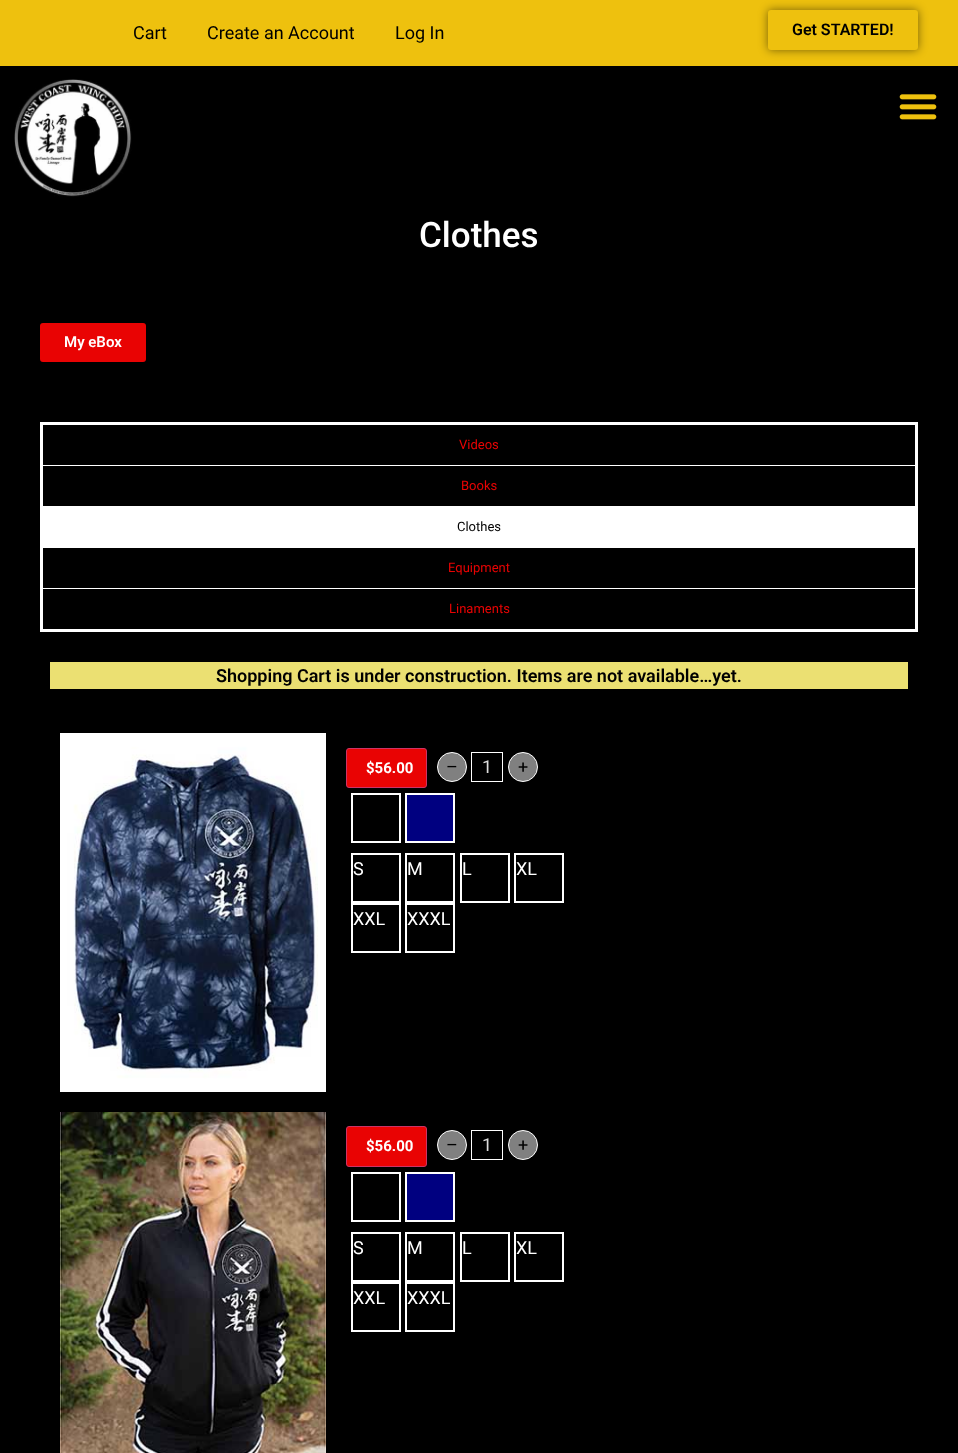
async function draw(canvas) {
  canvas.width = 958
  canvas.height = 1453
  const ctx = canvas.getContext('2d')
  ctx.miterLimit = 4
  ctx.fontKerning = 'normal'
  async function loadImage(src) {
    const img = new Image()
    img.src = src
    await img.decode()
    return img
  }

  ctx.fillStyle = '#000'
  ctx.fillRect(0, 0, 958, 1453)
  ctx.fillStyle = '#eec10e'
  ctx.fillRect(0, 0, 958, 66)
  ctx.font = '18px Roboto'
  ctx.fillStyle = '#000'
  ctx.fillText('Cart', 133, 39)
  ctx.fillText('Create an Account', 207, 39)
  ctx.fillText('Log In', 395, 39)
  ctx.fillStyle = '#00000080'
  ctx.filter = 'blur(5px)'
  ctx.beginPath()
  ctx.roundRect(768, 10, 150, 40, 3)
  ctx.fill()
  ctx.filter = 'none'
  ctx.fillStyle = '#eec10e'
  ctx.beginPath()
  ctx.roundRect(768, 10, 150, 40, 3)
  ctx.fill()
  ctx.font = '600 16px Roboto'
  ctx.fillStyle = '#000'
  ctx.fillText('Get STARTED!', 792, 35)
  ctx.drawImage(await loadImage('image0.png'), 14, 79, 118, 118)
  ctx.drawImage(await loadImage('image1.png'), 899, 94, 38, 26)
  ctx.font = '500 35px Roboto'
  ctx.fillStyle = '#fff'
  ctx.fillText('Clothes', 419, 247)
  ctx.fillStyle = '#e90303'
  ctx.beginPath()
  ctx.roundRect(40, 323, 106, 39, 3)
  ctx.fill()
  ctx.font = '600 15px Roboto'
  ctx.fillStyle = '#fff'
  ctx.fillText('My eBox', 64, 347)
  ctx.strokeStyle = '#fff'
  ctx.lineWidth = 3
  ctx.strokeRect(41.5, 423.5, 875, 207)
  ctx.fillRect(43, 465, 872, 1)
  ctx.font = '13px Roboto'
  ctx.fillStyle = '#e90303'
  ctx.fillText('Videos', 459, 449)
  ctx.fillStyle = '#fff'
  ctx.fillRect(43, 506, 872, 1)
  ctx.fillStyle = '#e90303'
  ctx.fillText('Books', 461, 490)
  ctx.fillStyle = '#fff'
  ctx.fillRect(43, 507, 872, 41)
  ctx.fillStyle = '#000'
  ctx.fillText('Clothes', 457, 531)
  ctx.fillStyle = '#fff'
  ctx.fillRect(43, 588, 872, 1)
  ctx.fillStyle = '#e90303'
  ctx.fillText('Equipment', 448, 572)
  ctx.fillText('Linaments', 449, 613)
  ctx.fillStyle = '#ebe072'
  ctx.fillRect(50, 662, 858, 27)
  ctx.font = '600 18px Roboto'
  ctx.fillStyle = '#000'
  ctx.fillText('Shopping Cart is under construction. Items are not available…yet.', 216, 682)
  ctx.drawImage(await loadImage('image2.png'), 60, 733, 266, 359)
  ctx.fillStyle = '#e90303'
  ctx.beginPath()
  ctx.roundRect(346.5, 748.5, 80, 39, 2.5)
  ctx.fill()
  ctx.strokeStyle = '#c36'
  ctx.lineWidth = 1
  ctx.stroke()
  ctx.font = 'bold 15px Roboto'
  ctx.fillStyle = '#fff'
  ctx.fillText('$56.00', 366, 773)
  ctx.fillStyle = '#808080'
  ctx.beginPath()
  ctx.arc(452, 767, 14.5, 0, 2 * Math.PI)
  ctx.fill()
  ctx.strokeStyle = '#fff'
  ctx.stroke()
  ctx.font = '18px Roboto'
  ctx.fillStyle = '#000'
  ctx.fillText('–', 446, 773)
  ctx.strokeRect(471.5, 752.5, 31, 29)
  ctx.fillStyle = '#ddd'
  ctx.fillText('1', 482, 773)
  ctx.fillStyle = '#808080'
  ctx.beginPath()
  ctx.arc(523, 767, 14.5, 0, 2 * Math.PI)
  ctx.fill()
  ctx.stroke()
  ctx.fillStyle = '#000'
  ctx.fillText('+', 518, 773)
  ctx.lineWidth = 2
  ctx.strokeRect(352, 794, 48, 48)
  ctx.fillStyle = '#000080'
  ctx.beginPath()
  ctx.rect(406, 794, 48, 48)
  ctx.fill()
  ctx.stroke()
  ctx.strokeRect(352, 854, 48, 48)
  ctx.fillStyle = '#fff'
  ctx.fillText('S', 353, 875)
  ctx.strokeRect(406, 854, 48, 48)
  ctx.fillText('M', 407, 875)
  ctx.strokeRect(461, 854, 48, 48)
  ctx.fillText('L', 462, 875)
  ctx.strokeRect(515, 854, 48, 48)
  ctx.fillText('XL', 516, 875)
  ctx.strokeRect(352, 904, 48, 48)
  ctx.fillText('XXL', 353, 925)
  ctx.strokeRect(406, 904, 48, 48)
  ctx.fillText('XXXL', 407, 925)
  ctx.drawImage(await loadImage('image3.png'), 60, 1112, 266, 341)
  ctx.fillStyle = '#e90303'
  ctx.beginPath()
  ctx.roundRect(346.5, 1126.5, 80, 40, 2.5)
  ctx.fill()
  ctx.strokeStyle = '#c36'
  ctx.lineWidth = 1
  ctx.stroke()
  ctx.font = 'bold 15px Roboto'
  ctx.fillStyle = '#fff'
  ctx.fillText('$56.00', 366, 1151)
  ctx.fillStyle = '#808080'
  ctx.beginPath()
  ctx.arc(452, 1145, 14.5, 0, 2 * Math.PI)
  ctx.fill()
  ctx.strokeStyle = '#fff'
  ctx.stroke()
  ctx.font = '18px Roboto'
  ctx.fillStyle = '#000'
  ctx.fillText('–', 446, 1151)
  ctx.strokeRect(471.5, 1130.5, 31, 29)
  ctx.fillStyle = '#ddd'
  ctx.fillText('1', 482, 1151)
  ctx.fillStyle = '#808080'
  ctx.beginPath()
  ctx.arc(523, 1145, 14.5, 0, 2 * Math.PI)
  ctx.fill()
  ctx.stroke()
  ctx.fillStyle = '#000'
  ctx.fillText('+', 518, 1151)
  ctx.lineWidth = 2
  ctx.strokeRect(352, 1173, 48, 48)
  ctx.fillStyle = '#000080'
  ctx.beginPath()
  ctx.rect(406, 1173, 48, 48)
  ctx.fill()
  ctx.stroke()
  ctx.strokeRect(352, 1233, 48, 48)
  ctx.fillStyle = '#fff'
  ctx.fillText('S', 353, 1254)
  ctx.strokeRect(406, 1233, 48, 48)
  ctx.fillText('M', 407, 1254)
  ctx.strokeRect(461, 1233, 48, 48)
  ctx.fillText('L', 462, 1254)
  ctx.strokeRect(515, 1233, 48, 48)
  ctx.fillText('XL', 516, 1254)
  ctx.strokeRect(352, 1283, 48, 48)
  ctx.fillText('XXL', 353, 1304)
  ctx.strokeRect(406, 1283, 48, 48)
  ctx.fillText('XXXL', 407, 1304)
}

draw(document.querySelector('canvas'))
